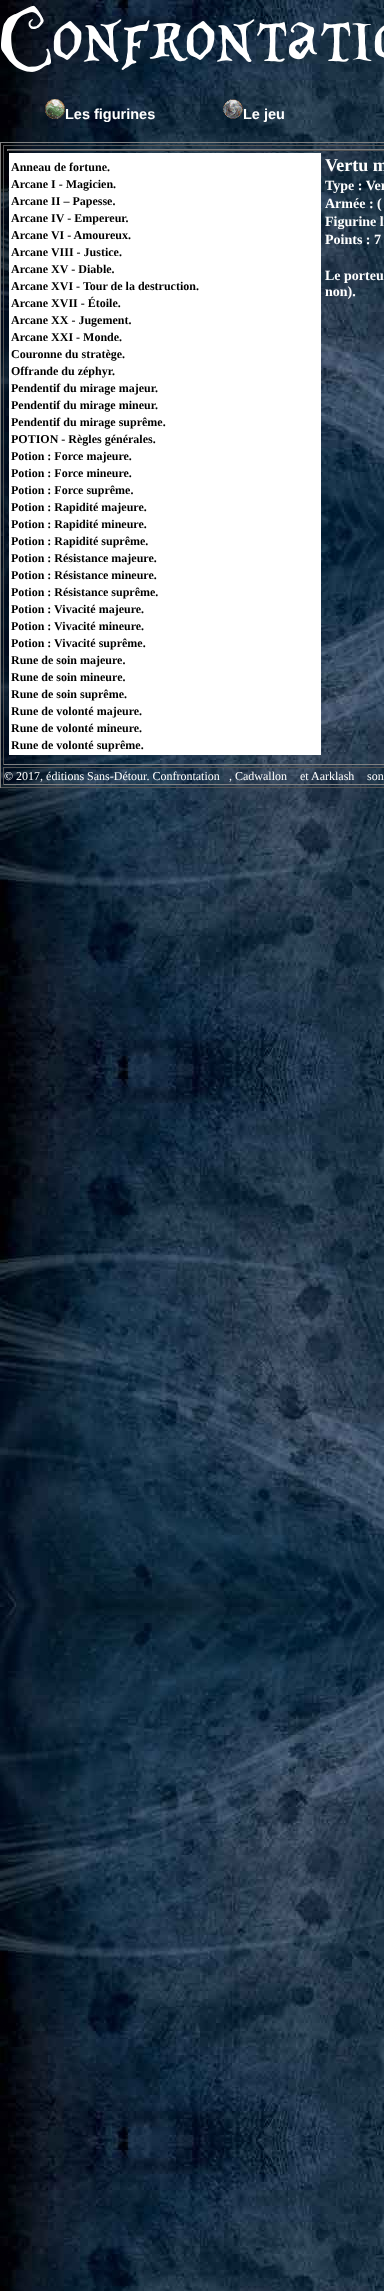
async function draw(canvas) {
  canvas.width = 384
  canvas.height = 2291
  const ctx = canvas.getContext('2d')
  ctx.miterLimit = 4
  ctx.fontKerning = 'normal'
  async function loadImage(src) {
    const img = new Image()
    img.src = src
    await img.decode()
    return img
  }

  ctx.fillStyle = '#fff'
  ctx.fillRect(0, 0, 384, 2291)
  ctx.drawImage(await loadImage('image0.png'), 0, 0, 384, 2291)
  ctx.drawImage(await loadImage('image1.png'), 1, 5, 383, 67)
  ctx.drawImage(await loadImage('image2.png'), 45, 99, 20, 20)
  ctx.font = 'bold 14.5px Liberation Sans'
  ctx.fillText('Les figurines', 65, 119)
  ctx.drawImage(await loadImage('image3.png'), 223, 99, 20, 20)
  ctx.fillText('Le jeu', 243, 119)
  ctx.fillStyle = '#808080'
  ctx.fillRect(0, 142, 384, 1)
  ctx.fillStyle = '#555'
  ctx.fillRect(0, 787, 384, 1)
  ctx.fillStyle = '#808080'
  ctx.fillRect(0, 142, 1, 646)
  ctx.fillStyle = '#555'
  ctx.fillRect(3, 145, 381, 1)
  ctx.fillStyle = '#808080'
  ctx.fillRect(3, 764, 381, 1)
  ctx.fillStyle = '#555'
  ctx.fillRect(3, 145, 1, 620)
  ctx.fillStyle = '#808080'
  ctx.fillRect(7, 149, 377, 1)
  ctx.fillStyle = '#555'
  ctx.fillRect(7, 150, 377, 1)
  ctx.fillStyle = '#808080'
  ctx.fillRect(7, 149, 1, 2)
  ctx.fillStyle = '#fff'
  ctx.fillRect(9, 153, 312, 602)
  ctx.font = 'bold 12px Liberation Serif'
  ctx.fillStyle = '#000'
  ctx.fillText('Anneau de fortune.', 11, 171)
  ctx.fillText('Arcane I - Magicien.', 11, 188)
  ctx.fillText('Arcane II – Papesse.', 11, 205)
  ctx.fillText('Arcane IV - Empereur.', 11, 222)
  ctx.fillText('Arcane VI - Amoureux.', 11, 239)
  ctx.fillText('Arcane VIII - Justice.', 11, 256)
  ctx.fillText('Arcane XV - Diable.', 11, 273)
  ctx.fillText('Arcane XVI - Tour de la destruction.', 11, 290)
  ctx.fillText('Arcane XVII - Étoile.', 11, 307)
  ctx.fillText('Arcane XX - Jugement.', 11, 324)
  ctx.fillText('Arcane XXI - Monde.', 11, 341)
  ctx.fillText('Couronne du stratège.', 11, 358)
  ctx.fillText('Offrande du zéphyr.', 11, 375)
  ctx.fillText('Pendentif du mirage majeur.', 11, 392)
  ctx.fillText('Pendentif du mirage mineur.', 11, 409)
  ctx.fillText('Pendentif du mirage suprême.', 11, 426)
  ctx.fillText('POTION - Règles générales.', 11, 443)
  ctx.fillText('Potion : Force majeure.', 11, 460)
  ctx.fillText('Potion : Force mineure.', 11, 477)
  ctx.fillText('Potion : Force suprême.', 11, 494)
  ctx.fillText('Potion : Rapidité majeure.', 11, 511)
  ctx.fillText('Potion : Rapidité mineure.', 11, 528)
  ctx.fillText('Potion : Rapidité suprême.', 11, 545)
  ctx.fillText('Potion : Résistance majeure.', 11, 562)
  ctx.fillText('Potion : Résistance mineure.', 11, 579)
  ctx.fillText('Potion : Résistance suprême.', 11, 596)
  ctx.fillText('Potion : Vivacité majeure.', 11, 613)
  ctx.fillText('Potion : Vivacité mineure.', 11, 630)
  ctx.fillText('Potion : Vivacité suprême.', 11, 647)
  ctx.fillText('Rune de soin majeure.', 11, 664)
  ctx.fillText('Rune de soin mineure.', 11, 681)
  ctx.fillText('Rune de soin suprême.', 11, 698)
  ctx.fillText('Rune de volonté majeure.', 11, 715)
  ctx.fillText('Rune de volonté mineure.', 11, 732)
  ctx.fillText('Rune de volonté suprême.', 11, 749)
  ctx.font = 'bold 18px Liberation Serif'
  ctx.fillStyle = '#fff'
  ctx.fillText('Vertu m', 325, 171)
  ctx.font = 'bold 14px Liberation Serif'
  ctx.fillText('Type : Ver', 325, 190)
  ctx.fillText('Armée : (', 325, 208)
  ctx.fillText('Figurine l', 325, 226)
  ctx.fillText('Points : 7', 325, 244)
  ctx.fillText('Le porteu', 325, 280)
  ctx.fillText('non).', 325, 296)
  ctx.fillStyle = '#555'
  ctx.fillRect(3, 767, 381, 1)
  ctx.fillStyle = '#808080'
  ctx.fillRect(3, 784, 381, 1)
  ctx.fillStyle = '#555'
  ctx.fillRect(3, 767, 1, 18)
  ctx.font = '12px Liberation Serif'
  ctx.fillStyle = '#fff'
  ctx.fillText('© 2017, éditions Sans-Détour. Confrontation', 4, 780)
  ctx.fillText(', Cadwallon', 229, 780)
  ctx.fillText('et Aarklash', 300, 780)
  ctx.fillText('son', 367, 780)
}

draw(document.querySelector('canvas'))
